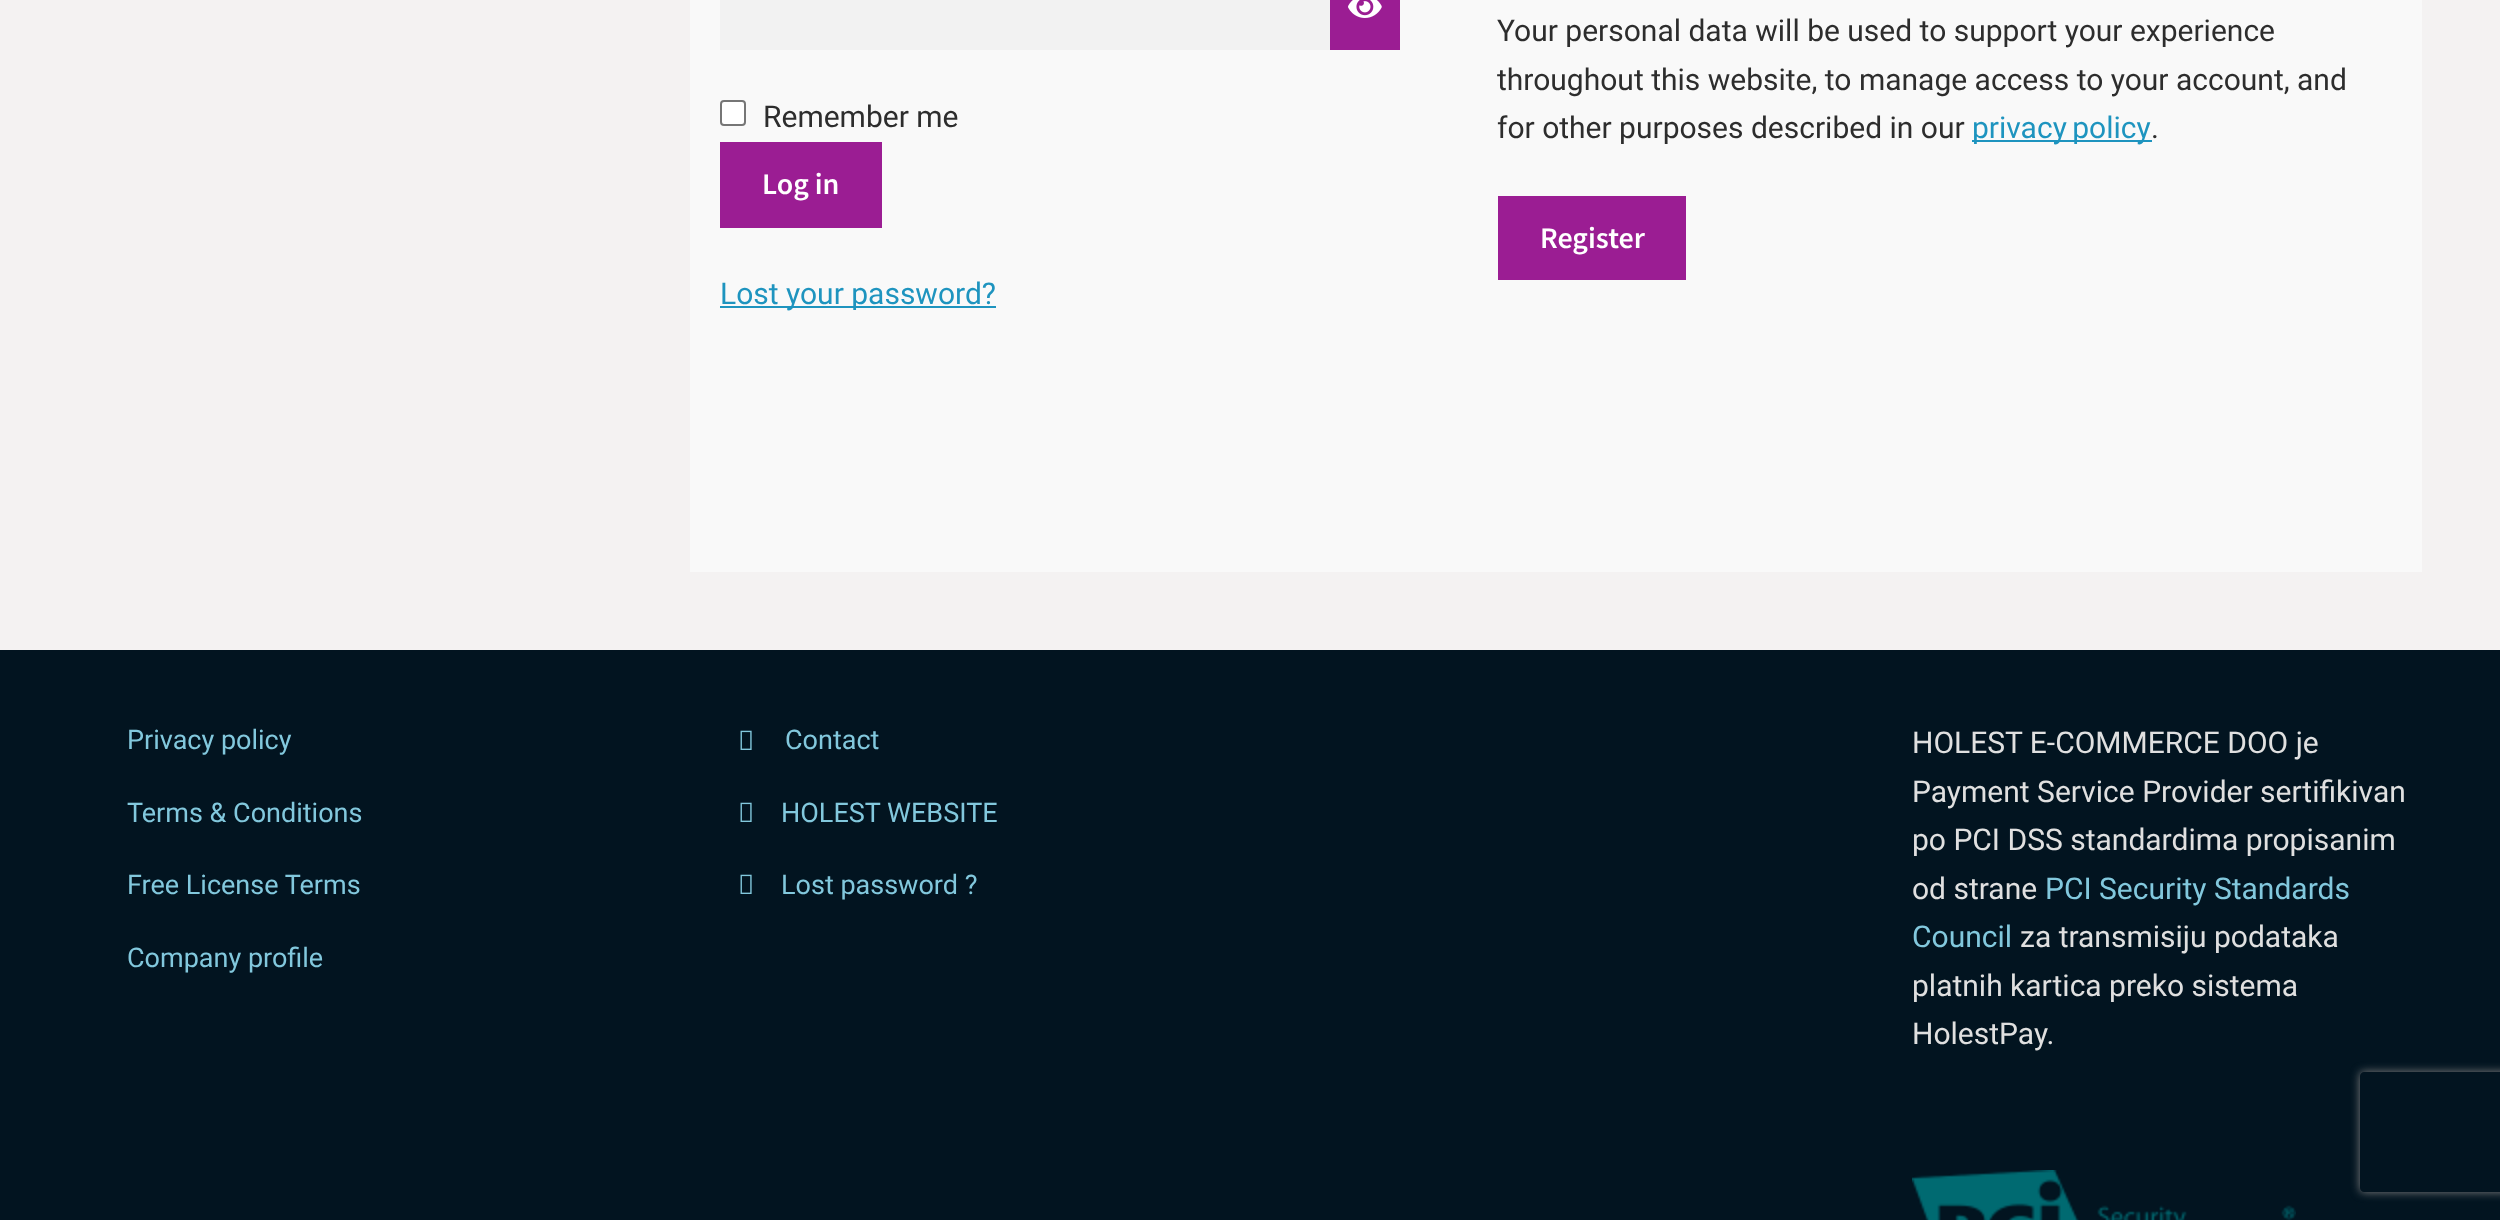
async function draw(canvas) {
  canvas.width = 2500
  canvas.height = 1220
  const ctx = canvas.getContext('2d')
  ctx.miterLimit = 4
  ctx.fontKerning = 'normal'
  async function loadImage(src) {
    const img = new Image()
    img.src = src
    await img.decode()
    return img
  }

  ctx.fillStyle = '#f4f2f2'
  ctx.fillRect(0, 0, 2500, 1220)
  ctx.fillStyle = '#f9f9f9'
  ctx.fillRect(690, 0, 1732, 572)
  ctx.fillStyle = '#f2f2f2'
  ctx.fillRect(720, 0, 610, 50)
  ctx.fillStyle = '#9b1d93'
  ctx.fillRect(1330, 0, 70, 50)
  ctx.drawImage(await loadImage('image0.png'), 1348, 0, 34, 18)
  ctx.fillStyle = '#fff'
  ctx.beginPath()
  ctx.roundRect(721, 101, 24, 24, 3)
  ctx.fill()
  ctx.strokeStyle = '#767676'
  ctx.lineWidth = 2
  ctx.stroke()
  ctx.font = '30px Roboto'
  ctx.fillStyle = '#2d2d2d'
  ctx.fillText('Remember me', 763, 127)
  ctx.fillStyle = '#9b1d93'
  ctx.fillRect(720, 142, 162, 86)
  ctx.font = '600 30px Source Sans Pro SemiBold'
  ctx.fillStyle = '#fff'
  ctx.fillText('Log in', 762, 194)
  ctx.fillStyle = '#1e94bf'
  ctx.fillRect(720, 306, 276, 2)
  ctx.font = '30px Roboto'
  ctx.fillText('Lost your password?', 720, 304)
  ctx.fillStyle = '#2d2d2d'
  ctx.fillText('Your personal data will be used to support your experience', 1497, 41)
  ctx.fillText('throughout this website, to manage access to your account, and', 1497, 90)
  ctx.fillText('for other purposes described in our', 1497, 138)
  ctx.fillStyle = '#1e94bf'
  ctx.fillRect(1972, 140, 180, 2)
  ctx.wordSpacing = '-2px'
  ctx.fillText('privacy policy', 1972, 138)
  ctx.wordSpacing = '0px'
  ctx.fillStyle = '#2d2d2d'
  ctx.fillText('.', 2151, 138)
  ctx.fillStyle = '#9b1d93'
  ctx.fillRect(1498, 196, 188, 84)
  ctx.font = '600 30px Source Sans Pro SemiBold'
  ctx.fillStyle = '#fff'
  ctx.fillText('Register', 1540, 248)
  ctx.fillStyle = '#021420'
  ctx.fillRect(0, 650, 2500, 570)
  ctx.font = '27px Roboto'
  ctx.fillStyle = '#82c8dd'
  ctx.fillText('Privacy policy', 127, 749)
  ctx.fillText('Terms & Conditions', 127, 822)
  ctx.fillText('Free License Terms', 127, 894)
  ctx.fillText('Company profile', 127, 967)
  ctx.drawImage(await loadImage('image1.png'), 740, 730, 12, 20)
  ctx.fillText('Contact', 785, 749)
  ctx.drawImage(await loadImage('image1.png'), 740, 802, 12, 20)
  ctx.fillText('HOLEST WEBSITE', 781, 822)
  ctx.drawImage(await loadImage('image1.png'), 740, 874, 12, 20)
  ctx.fillText('Lost password ?', 781, 894)
  ctx.font = '30px Roboto'
  ctx.fillStyle = '#e0e0e0'
  ctx.fillText('HOLEST E-COMMERCE DOO je', 1912, 753)
  ctx.fillText('Payment Service Provider sertifikivan', 1912, 802)
  ctx.fillText('po PCI DSS standardima propisanim', 1912, 850)
  ctx.fillText('od strane', 1912, 899)
  ctx.fillStyle = '#82c8dd'
  ctx.fillText('PCI Security Standards', 2045, 899)
  ctx.fillText('Council', 1912, 947)
  ctx.fillStyle = '#e0e0e0'
  ctx.fillText('za transmisiju podataka', 2020, 947)
  ctx.fillText('platnih kartica preko sistema', 1912, 996)
  ctx.fillText('HolestPay.', 1912, 1044)
  ctx.drawImage(await loadImage('image2.png'), 1912, 1170, 384, 50)
  ctx.save()
  ctx.beginPath()
  ctx.moveTo(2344, 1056)
  ctx.lineTo(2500, 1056)
  ctx.lineTo(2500, 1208)
  ctx.lineTo(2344, 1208)
  ctx.closePath()
  ctx.moveTo(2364, 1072)
  ctx.lineTo(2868, 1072)
  ctx.bezierCurveTo(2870, 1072, 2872, 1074, 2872, 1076)
  ctx.lineTo(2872, 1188)
  ctx.bezierCurveTo(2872, 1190, 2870, 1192, 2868, 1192)
  ctx.lineTo(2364, 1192)
  ctx.bezierCurveTo(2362, 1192, 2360, 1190, 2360, 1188)
  ctx.lineTo(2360, 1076)
  ctx.bezierCurveTo(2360, 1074, 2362, 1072, 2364, 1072)
  ctx.closePath()
  ctx.clip('evenodd')
  ctx.fillStyle = '#808080'
  ctx.filter = 'blur(5px)'
  ctx.beginPath()
  ctx.roundRect(2360, 1072, 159, 120, 4)
  ctx.fill()
  ctx.filter = 'none'
  ctx.restore()
}

draw(document.querySelector('canvas'))
